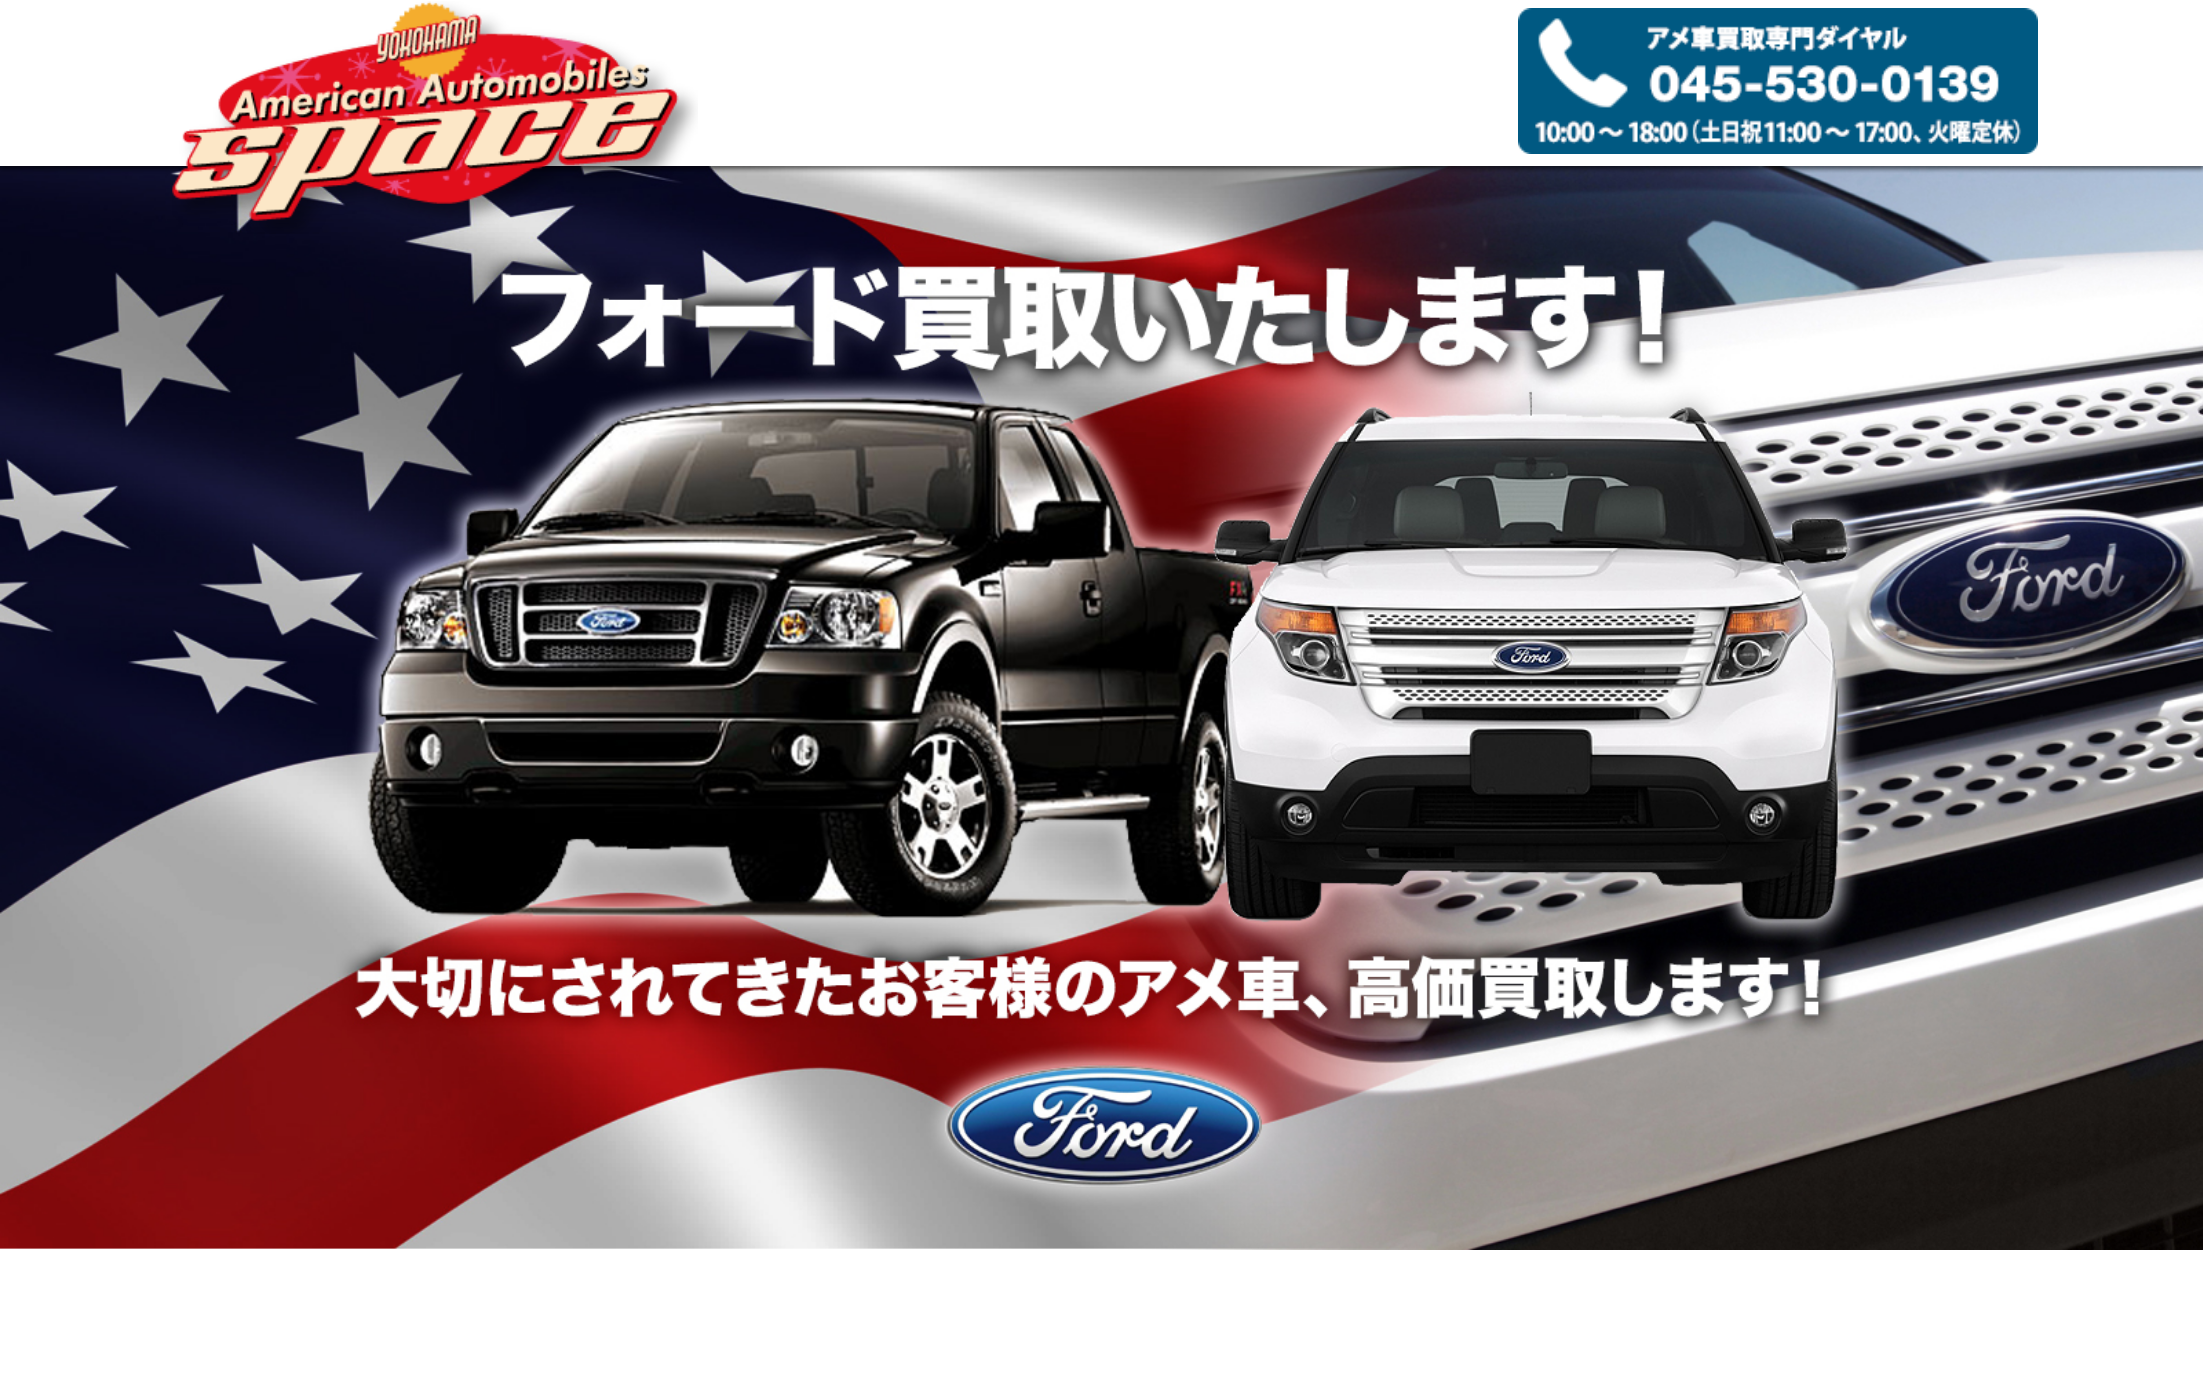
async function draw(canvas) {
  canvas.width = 2203
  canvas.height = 1379
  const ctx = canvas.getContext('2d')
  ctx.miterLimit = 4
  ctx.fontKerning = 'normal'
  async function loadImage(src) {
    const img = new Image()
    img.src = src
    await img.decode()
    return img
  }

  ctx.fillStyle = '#fff'
  ctx.fillRect(0, 0, 2203, 1379)
  ctx.drawImage(await loadImage('image2.png'), 0, 166, 2203, 1084)
  ctx.drawImage(await loadImage('image0.png'), 172, 1, 526, 233)
  ctx.drawImage(await loadImage('image1.png'), 1518, 8, 520, 146)
}

draw(document.querySelector('canvas'))
